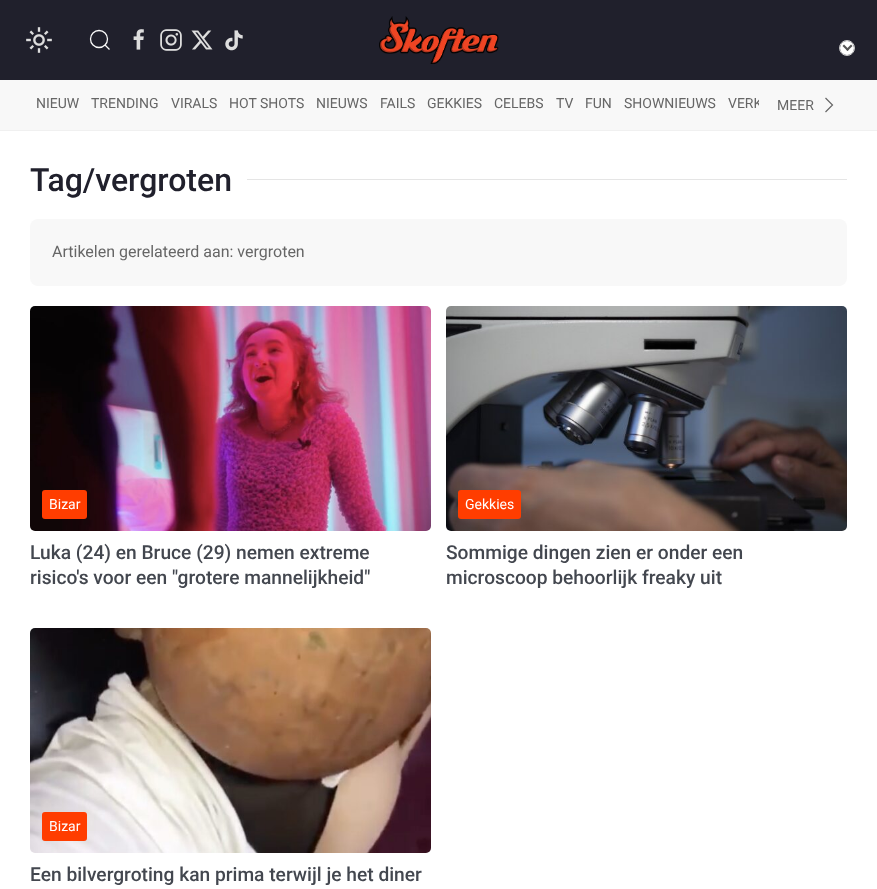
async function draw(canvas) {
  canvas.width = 877
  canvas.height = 889
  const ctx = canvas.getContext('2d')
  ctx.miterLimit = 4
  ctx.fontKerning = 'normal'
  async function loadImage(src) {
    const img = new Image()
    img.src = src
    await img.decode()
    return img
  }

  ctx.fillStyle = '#fff'
  ctx.fillRect(0, 0, 877, 889)
  ctx.fillStyle = '#20202c'
  ctx.fillRect(0, 0, 877, 80)
  ctx.drawImage(await loadImage('image0.png'), 26, 27, 26, 26)
  ctx.beginPath()
  ctx.arc(99, 39, 8.5, 0, 2 * Math.PI)
  ctx.strokeStyle = '#fafafa'
  ctx.lineWidth = 1.3
  ctx.stroke()
  ctx.beginPath()
  ctx.moveTo(105, 45)
  ctx.lineTo(109.5, 49.5)
  ctx.closePath()
  ctx.stroke()
  ctx.drawImage(await loadImage('image1.png'), 133, 29, 11, 21)
  ctx.drawImage(await loadImage('image2.png'), 160, 29, 22, 22)
  ctx.drawImage(await loadImage('image3.png'), 191, 30, 22, 20)
  ctx.drawImage(await loadImage('image4.png'), 225, 30, 18, 21)
  ctx.drawImage(await loadImage('image5.png'), 379, 16, 120, 48)
  ctx.beginPath()
  ctx.arc(847, 48, 7.5, 0, 2 * Math.PI)
  ctx.strokeStyle = '#ccc'
  ctx.lineWidth = 1
  ctx.stroke()
  ctx.fillStyle = '#fff'
  ctx.beginPath()
  ctx.arc(847, 48, 7, 0, 2 * Math.PI)
  ctx.fill()
  ctx.fillStyle = '#555'
  ctx.beginPath()
  ctx.moveTo(851, 44.5)
  ctx.lineTo(852.5, 46)
  ctx.lineTo(847.5, 51)
  ctx.lineTo(846, 49.5)
  ctx.closePath()
  ctx.fill()
  ctx.beginPath()
  ctx.moveTo(844, 44.5)
  ctx.lineTo(849, 49.5)
  ctx.lineTo(847.5, 51)
  ctx.lineTo(842.5, 46)
  ctx.closePath()
  ctx.fill()
  ctx.fillStyle = '#f8f8f8'
  ctx.fillRect(0, 80, 877, 50)
  ctx.fillStyle = '#f0f0f0'
  ctx.fillRect(0, 130, 877, 1)
  ctx.font = '14px Roboto'
  ctx.fillStyle = '#666'
  ctx.fillText('NIEUW', 36, 108)
  ctx.fillText('TRENDING', 91, 108)
  ctx.fillText('VIRALS', 171, 108)
  ctx.fillText('HOT SHOTS', 229, 108)
  ctx.fillText('NIEUWS', 316, 108)
  ctx.fillText('FAILS', 380, 108)
  ctx.fillText('GEKKIES', 427, 108)
  ctx.fillText('CELEBS', 494, 108)
  ctx.fillText('TV', 556, 108)
  ctx.fillText('FUN', 585, 108)
  ctx.fillText('SHOWNIEUWS', 624, 108)
  ctx.save()
  ctx.beginPath()
  ctx.rect(30, 80, 729, 50)
  ctx.clip()
  ctx.fillText('VERK', 728, 108)
  ctx.restore()
  ctx.fillText('MEER', 777, 110)
  ctx.beginPath()
  ctx.moveTo(825.5, 98)
  ctx.lineTo(832.5, 105)
  ctx.lineTo(825.5, 112)
  ctx.strokeStyle = '#666'
  ctx.lineWidth = 1.2
  ctx.stroke()
  ctx.font = '500 32px Roboto'
  ctx.fillStyle = '#20202c'
  ctx.fillText('Tag/vergroten', 30, 191)
  ctx.fillStyle = '#e5e5e5'
  ctx.fillRect(247, 179, 600, 1)
  ctx.fillStyle = '#f8f8f8'
  ctx.beginPath()
  ctx.roundRect(30, 219, 817, 67, 8)
  ctx.fill()
  ctx.font = '16px Roboto'
  ctx.fillStyle = '#666'
  ctx.fillText('Artikelen gerelateerd aan: vergroten', 52, 257)
  ctx.drawImage(await loadImage('image6.png'), 30, 306, 401, 225)
  ctx.fillStyle = '#ff3d00'
  ctx.beginPath()
  ctx.roundRect(42, 490, 45, 29, 3)
  ctx.fill()
  ctx.font = '14px Roboto'
  ctx.fillStyle = '#fff'
  ctx.fillText('Bizar', 49, 509)
  ctx.font = '500 19.2px Roboto'
  ctx.fillStyle = '#43474f'
  ctx.fillText('Luka (24) en Bruce (29) nemen extreme', 30, 559)
  ctx.fillText('risico\'s voor een "grotere mannelijkheid"', 30, 584)
  ctx.drawImage(await loadImage('image7.png'), 446, 306, 401, 225)
  ctx.fillStyle = '#ff3d00'
  ctx.beginPath()
  ctx.roundRect(458, 490, 63, 29, 3)
  ctx.fill()
  ctx.font = '14px Roboto'
  ctx.fillStyle = '#fff'
  ctx.fillText('Gekkies', 465, 509)
  ctx.font = '500 19.2px Roboto'
  ctx.fillStyle = '#43474f'
  ctx.fillText('Sommige dingen zien er onder een', 446, 559)
  ctx.fillText('microscoop behoorlijk freaky uit', 446, 584)
  ctx.drawImage(await loadImage('image8.png'), 30, 628, 401, 225)
  ctx.fillStyle = '#ff3d00'
  ctx.beginPath()
  ctx.roundRect(42, 812, 45, 29, 3)
  ctx.fill()
  ctx.font = '14px Roboto'
  ctx.fillStyle = '#fff'
  ctx.fillText('Bizar', 49, 831)
  ctx.font = '500 19.2px Roboto'
  ctx.fillStyle = '#43474f'
  ctx.fillText('Een bilvergroting kan prima terwijl je het diner', 30, 881)
}

draw(document.querySelector('canvas'))
